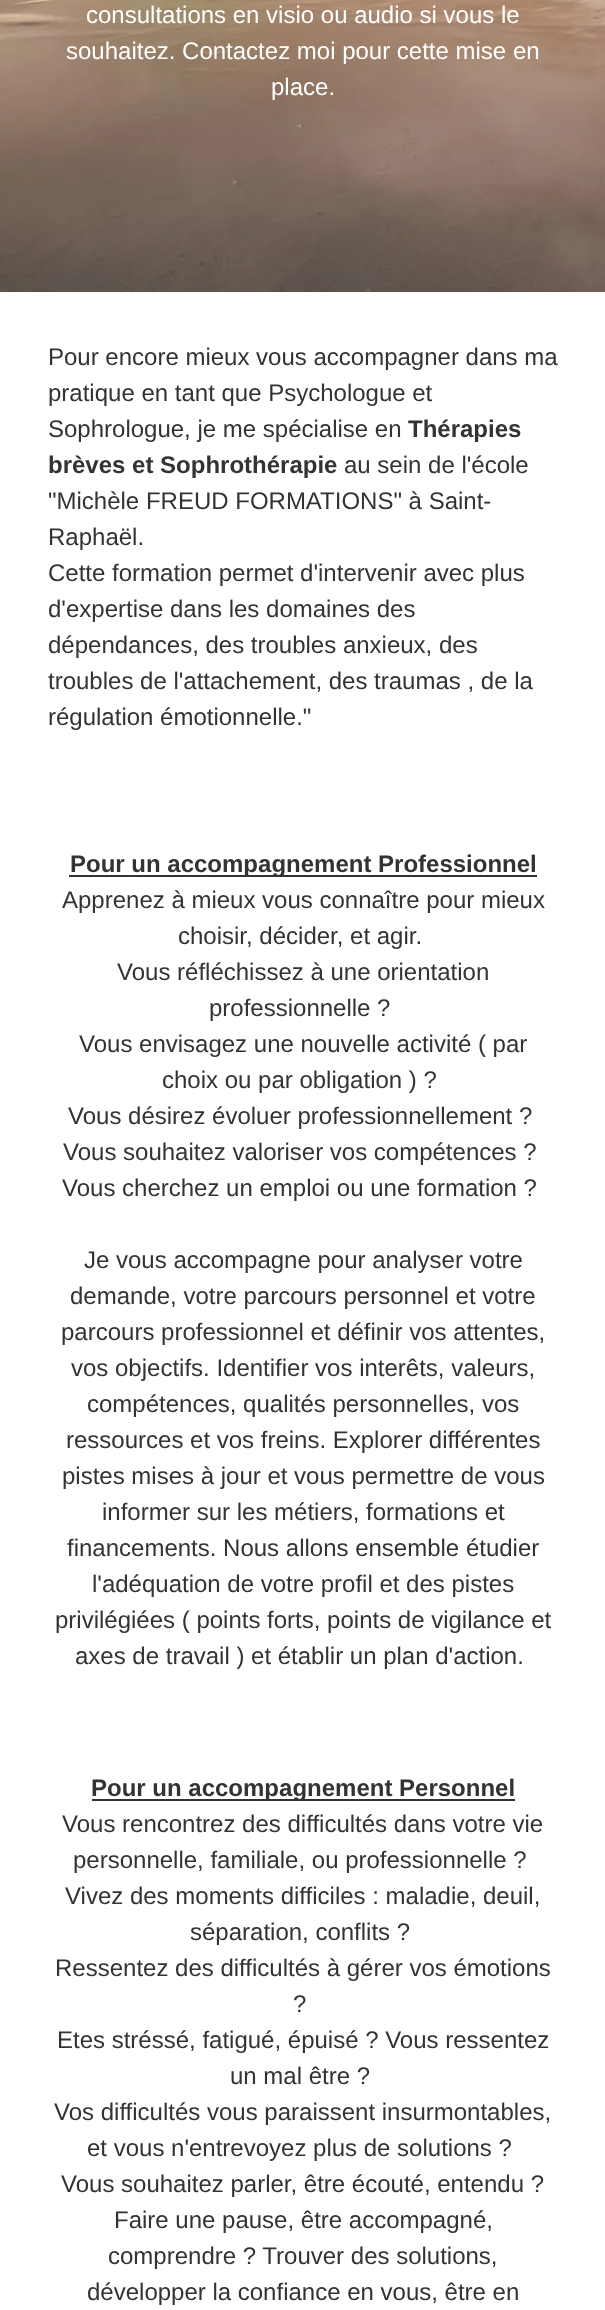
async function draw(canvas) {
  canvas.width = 605
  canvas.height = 2310
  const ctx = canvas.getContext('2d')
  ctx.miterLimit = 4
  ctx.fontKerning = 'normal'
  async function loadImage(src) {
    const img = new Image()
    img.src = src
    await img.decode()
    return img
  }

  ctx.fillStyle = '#fff'
  ctx.fillRect(0, 0, 605, 2310)
  ctx.drawImage(await loadImage('image0.png'), 0, 0, 605, 292)
  ctx.font = '24px Liberation Sans'
  ctx.fillText('consultations en visio ou audio si vous le', 86, 23)
  ctx.fillText('souhaitez. Contactez moi pour cette mise en', 66, 59)
  ctx.fillText('place.', 271, 95)
  ctx.fillStyle = '#333'
  ctx.fillText('Pour encore mieux vous accompagner dans ma', 48, 365)
  ctx.fillText('pratique en tant que Psychologue et', 48, 401)
  ctx.fillText('Sophrologue, je me spécialise en', 48, 437)
  ctx.font = 'bold 24px Liberation Sans'
  ctx.fillText('Thérapies', 408, 437)
  ctx.fillText('brèves et Sophrothérapie', 48, 473)
  ctx.font = '24px Liberation Sans'
  ctx.fillText('au sein de l\'école', 344, 473)
  ctx.fillText('"Michèle FREUD FORMATIONS" à Saint-', 48, 509)
  ctx.fillText('Raphaël.', 48, 545)
  ctx.fillText('Cette formation permet d\'intervenir avec plus', 48, 581)
  ctx.fillText('d\'expertise dans les domaines des', 48, 617)
  ctx.fillText('dépendances, des troubles anxieux, des', 48, 653)
  ctx.fillText('troubles de l\'attachement, des traumas , de la', 48, 689)
  ctx.fillText('régulation émotionnelle."', 48, 725)
  ctx.fillRect(69, 875, 468, 2)
  ctx.font = 'bold 24px Liberation Sans'
  ctx.fillText('Pour un accompagnement Professionnel', 70, 872)
  ctx.font = '24px Liberation Sans'
  ctx.fillText('Apprenez à mieux vous connaître pour mieux', 62, 908)
  ctx.fillText('choisir, décider, et agir.', 178, 944)
  ctx.fillText('Vous réfléchissez à une orientation', 117, 980)
  ctx.fillText('professionnelle ?', 209, 1016)
  ctx.fillText('Vous envisagez une nouvelle activité ( par', 79, 1052)
  ctx.fillText('choix ou par obligation ) ?', 162, 1088)
  ctx.fillText('Vous désirez évoluer professionnellement ?', 68, 1124)
  ctx.fillText('Vous souhaitez valoriser vos compétences ?', 63, 1160)
  ctx.fillText('Vous cherchez un emploi ou une formation ?', 62, 1196)
  ctx.fillText('Je vous accompagne pour analyser votre', 84, 1268)
  ctx.fillText('demande, votre parcours personnel et votre', 70, 1304)
  ctx.fillText('parcours professionnel et définir vos attentes,', 61, 1340)
  ctx.fillText('vos objectifs. Identifier vos interêts, valeurs,', 71, 1376)
  ctx.fillText('compétences, qualités personnelles, vos', 87, 1412)
  ctx.fillText('ressources et vos freins. Explorer différentes', 66, 1448)
  ctx.fillText('pistes mises à jour et vous permettre de vous', 62, 1484)
  ctx.fillText('informer sur les métiers, formations et', 102, 1520)
  ctx.fillText('financements. Nous allons ensemble étudier', 67, 1556)
  ctx.fillText('l\'adéquation de votre profil et des pistes', 92, 1592)
  ctx.fillText('privilégiées ( points forts, points de vigilance et', 55, 1628)
  ctx.fillText('axes de travail ) et établir un plan d\'action.', 75, 1664)
  ctx.fillRect(92, 1799, 423, 2)
  ctx.font = 'bold 24px Liberation Sans'
  ctx.fillText('Pour un accompagnement Personnel', 91, 1796)
  ctx.font = '24px Liberation Sans'
  ctx.fillText('Vous rencontrez des difficultés dans votre vie', 62, 1832)
  ctx.fillText('personnelle, familiale, ou professionnelle ?', 73, 1868)
  ctx.fillText('Vivez des moments difficiles : maladie, deuil,', 65, 1904)
  ctx.fillText('séparation, conflits ?', 190, 1940)
  ctx.fillText('Ressentez des difficultés à gérer vos émotions', 55, 1976)
  ctx.fillText('?', 293, 2012)
  ctx.fillText('Etes stréssé, fatigué, épuisé ? Vous ressentez', 57, 2048)
  ctx.fillText('un mal être ?', 230, 2084)
  ctx.fillText('Vos difficultés vous paraissent insurmontables,', 54, 2120)
  ctx.fillText('et vous n\'entrevoyez plus de solutions ?', 87, 2156)
  ctx.fillText('Vous souhaitez parler, être écouté, entendu ?', 61, 2192)
  ctx.fillText('Faire une pause, être accompagné,', 114, 2228)
  ctx.fillText('comprendre ? Trouver des solutions,', 108, 2264)
  ctx.fillText('développer la confiance en vous, être en', 87, 2300)
}

draw(document.querySelector('canvas'))
